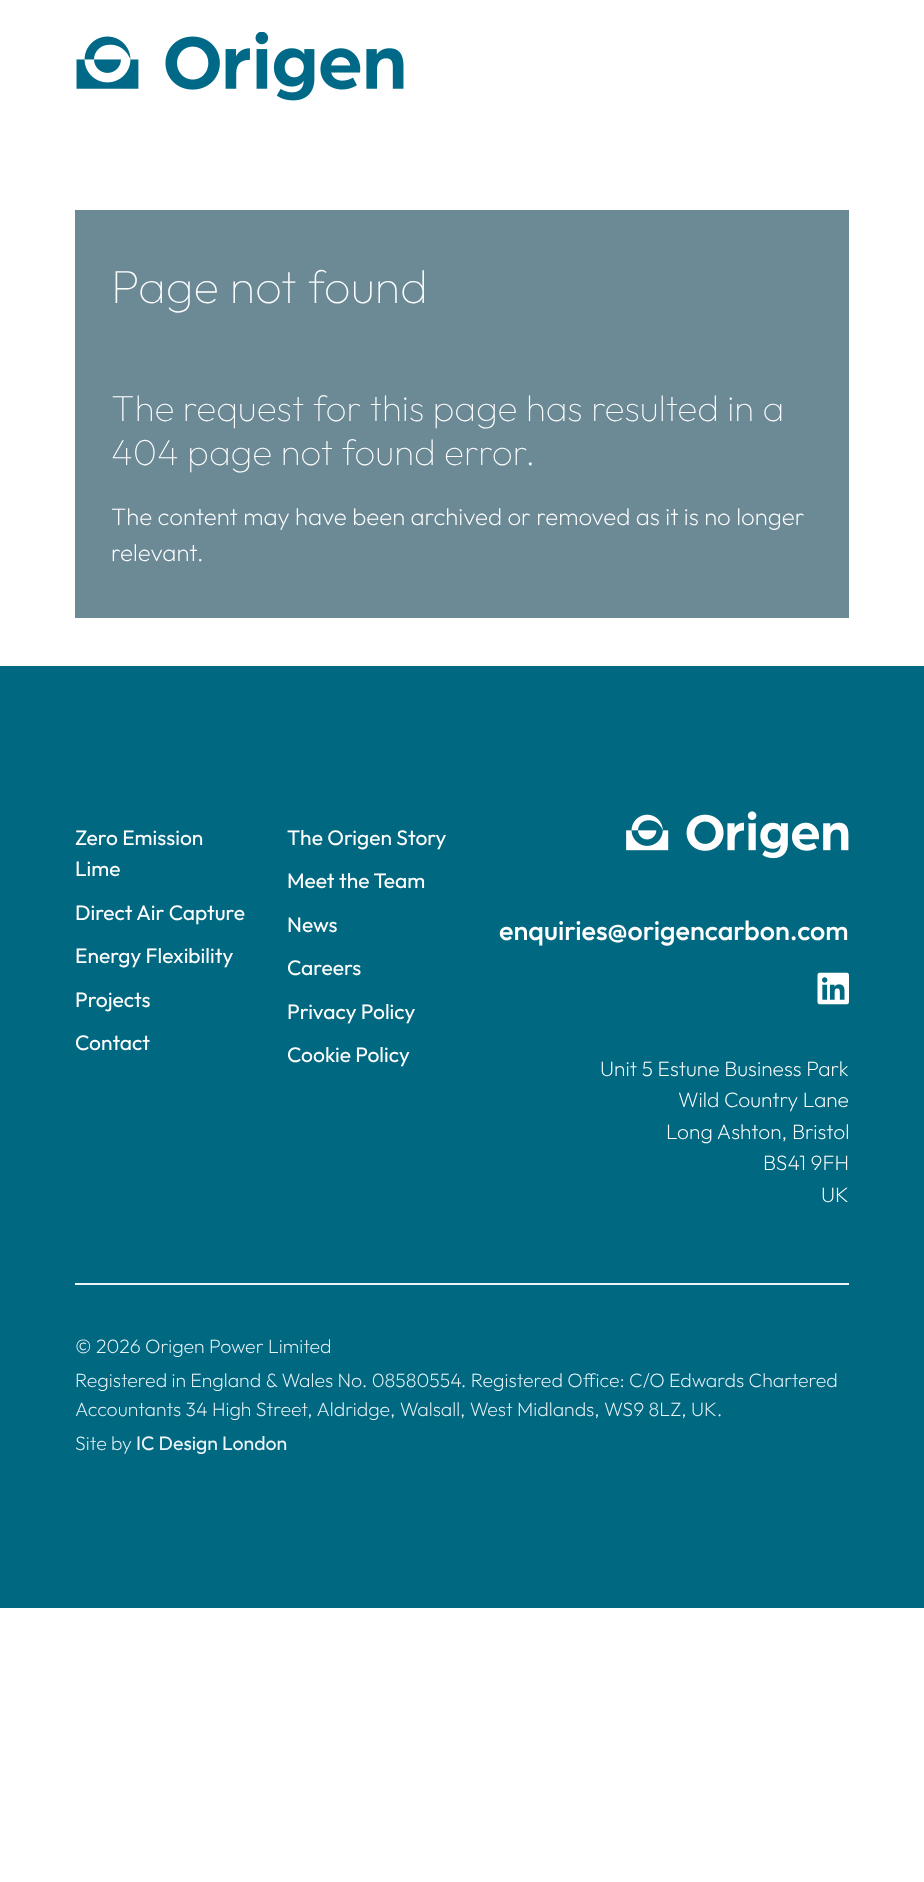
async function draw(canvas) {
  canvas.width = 924
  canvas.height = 1882
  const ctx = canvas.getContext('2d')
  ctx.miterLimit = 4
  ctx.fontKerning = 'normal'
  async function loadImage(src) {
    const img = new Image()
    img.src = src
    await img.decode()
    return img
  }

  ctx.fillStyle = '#fff'
  ctx.fillRect(0, 0, 924, 1882)
  ctx.drawImage(await loadImage('image0.png'), 76, 32, 328, 69)
  ctx.fillStyle = '#6c8996'
  ctx.fillRect(75, 210, 774, 408)
  ctx.font = '100 47px Outfit'
  ctx.fillStyle = '#fff'
  ctx.fillText('Page not found', 111, 303)
  ctx.font = '100 36.75px Outfit'
  ctx.fillText('The request for this page has resulted in a', 111, 421)
  ctx.fillText('404 page not found error.', 111, 465)
  ctx.font = '200 24px Outfit'
  ctx.fillText('The content may have been archived or removed as it is no longer', 111, 525)
  ctx.fillText('relevant.', 111, 561)
  ctx.fillStyle = '#006880'
  ctx.fillRect(0, 666, 924, 942)
  ctx.font = '21px Outfit'
  ctx.fillStyle = '#fff'
  ctx.fillText('Zero Emission', 75, 845)
  ctx.fillText('Lime', 75, 876)
  ctx.fillText('Direct Air Capture', 75, 920)
  ctx.fillText('Energy Flexibility', 75, 963)
  ctx.fillText('Projects', 75, 1007)
  ctx.fillText('Contact', 75, 1050)
  ctx.fillText('The Origen Story', 287, 845)
  ctx.fillText('Meet the Team', 287, 888)
  ctx.fillText('News', 287, 932)
  ctx.fillText('Careers', 287, 975)
  ctx.fillText('Privacy Policy', 287, 1019)
  ctx.fillText('Cookie Policy', 287, 1062)
  ctx.drawImage(await loadImage('image1.png'), 626, 811, 223, 48)
  ctx.font = '500 27px Outfit'
  ctx.fillText('enquiries@origencarbon.com', 499, 940)
  ctx.drawImage(await loadImage('image2.png'), 817, 972, 32, 33)
  ctx.font = '200 21px Outfit'
  ctx.fillText('Unit 5 Estune Business Park', 600, 1076)
  ctx.fillText('Wild Country Lane', 678, 1107)
  ctx.fillText('Long Ashton, Bristol', 666, 1139)
  ctx.fillText('BS41 9FH', 763, 1170)
  ctx.fillText('UK', 821, 1202)
  ctx.fillStyle = '#ebf5fa'
  ctx.fillRect(75, 1283, 774, 2)
  ctx.font = '200 19.5px Outfit'
  ctx.fillText('© 2026 Origen Power Limited', 75, 1353)
  ctx.fillText('Registered in England & Wales No. 08580554. Registered Office: C/O Edwards Chartered', 75, 1387)
  ctx.fillText('Accountants 34 High Street, Aldridge, Walsall, West Midlands, WS9 8LZ, UK.', 75, 1416)
  ctx.fillText('Site by', 75, 1450)
  ctx.font = '19.5px Outfit'
  ctx.fillText('IC Design London', 136, 1450)
}

draw(document.querySelector('canvas'))
